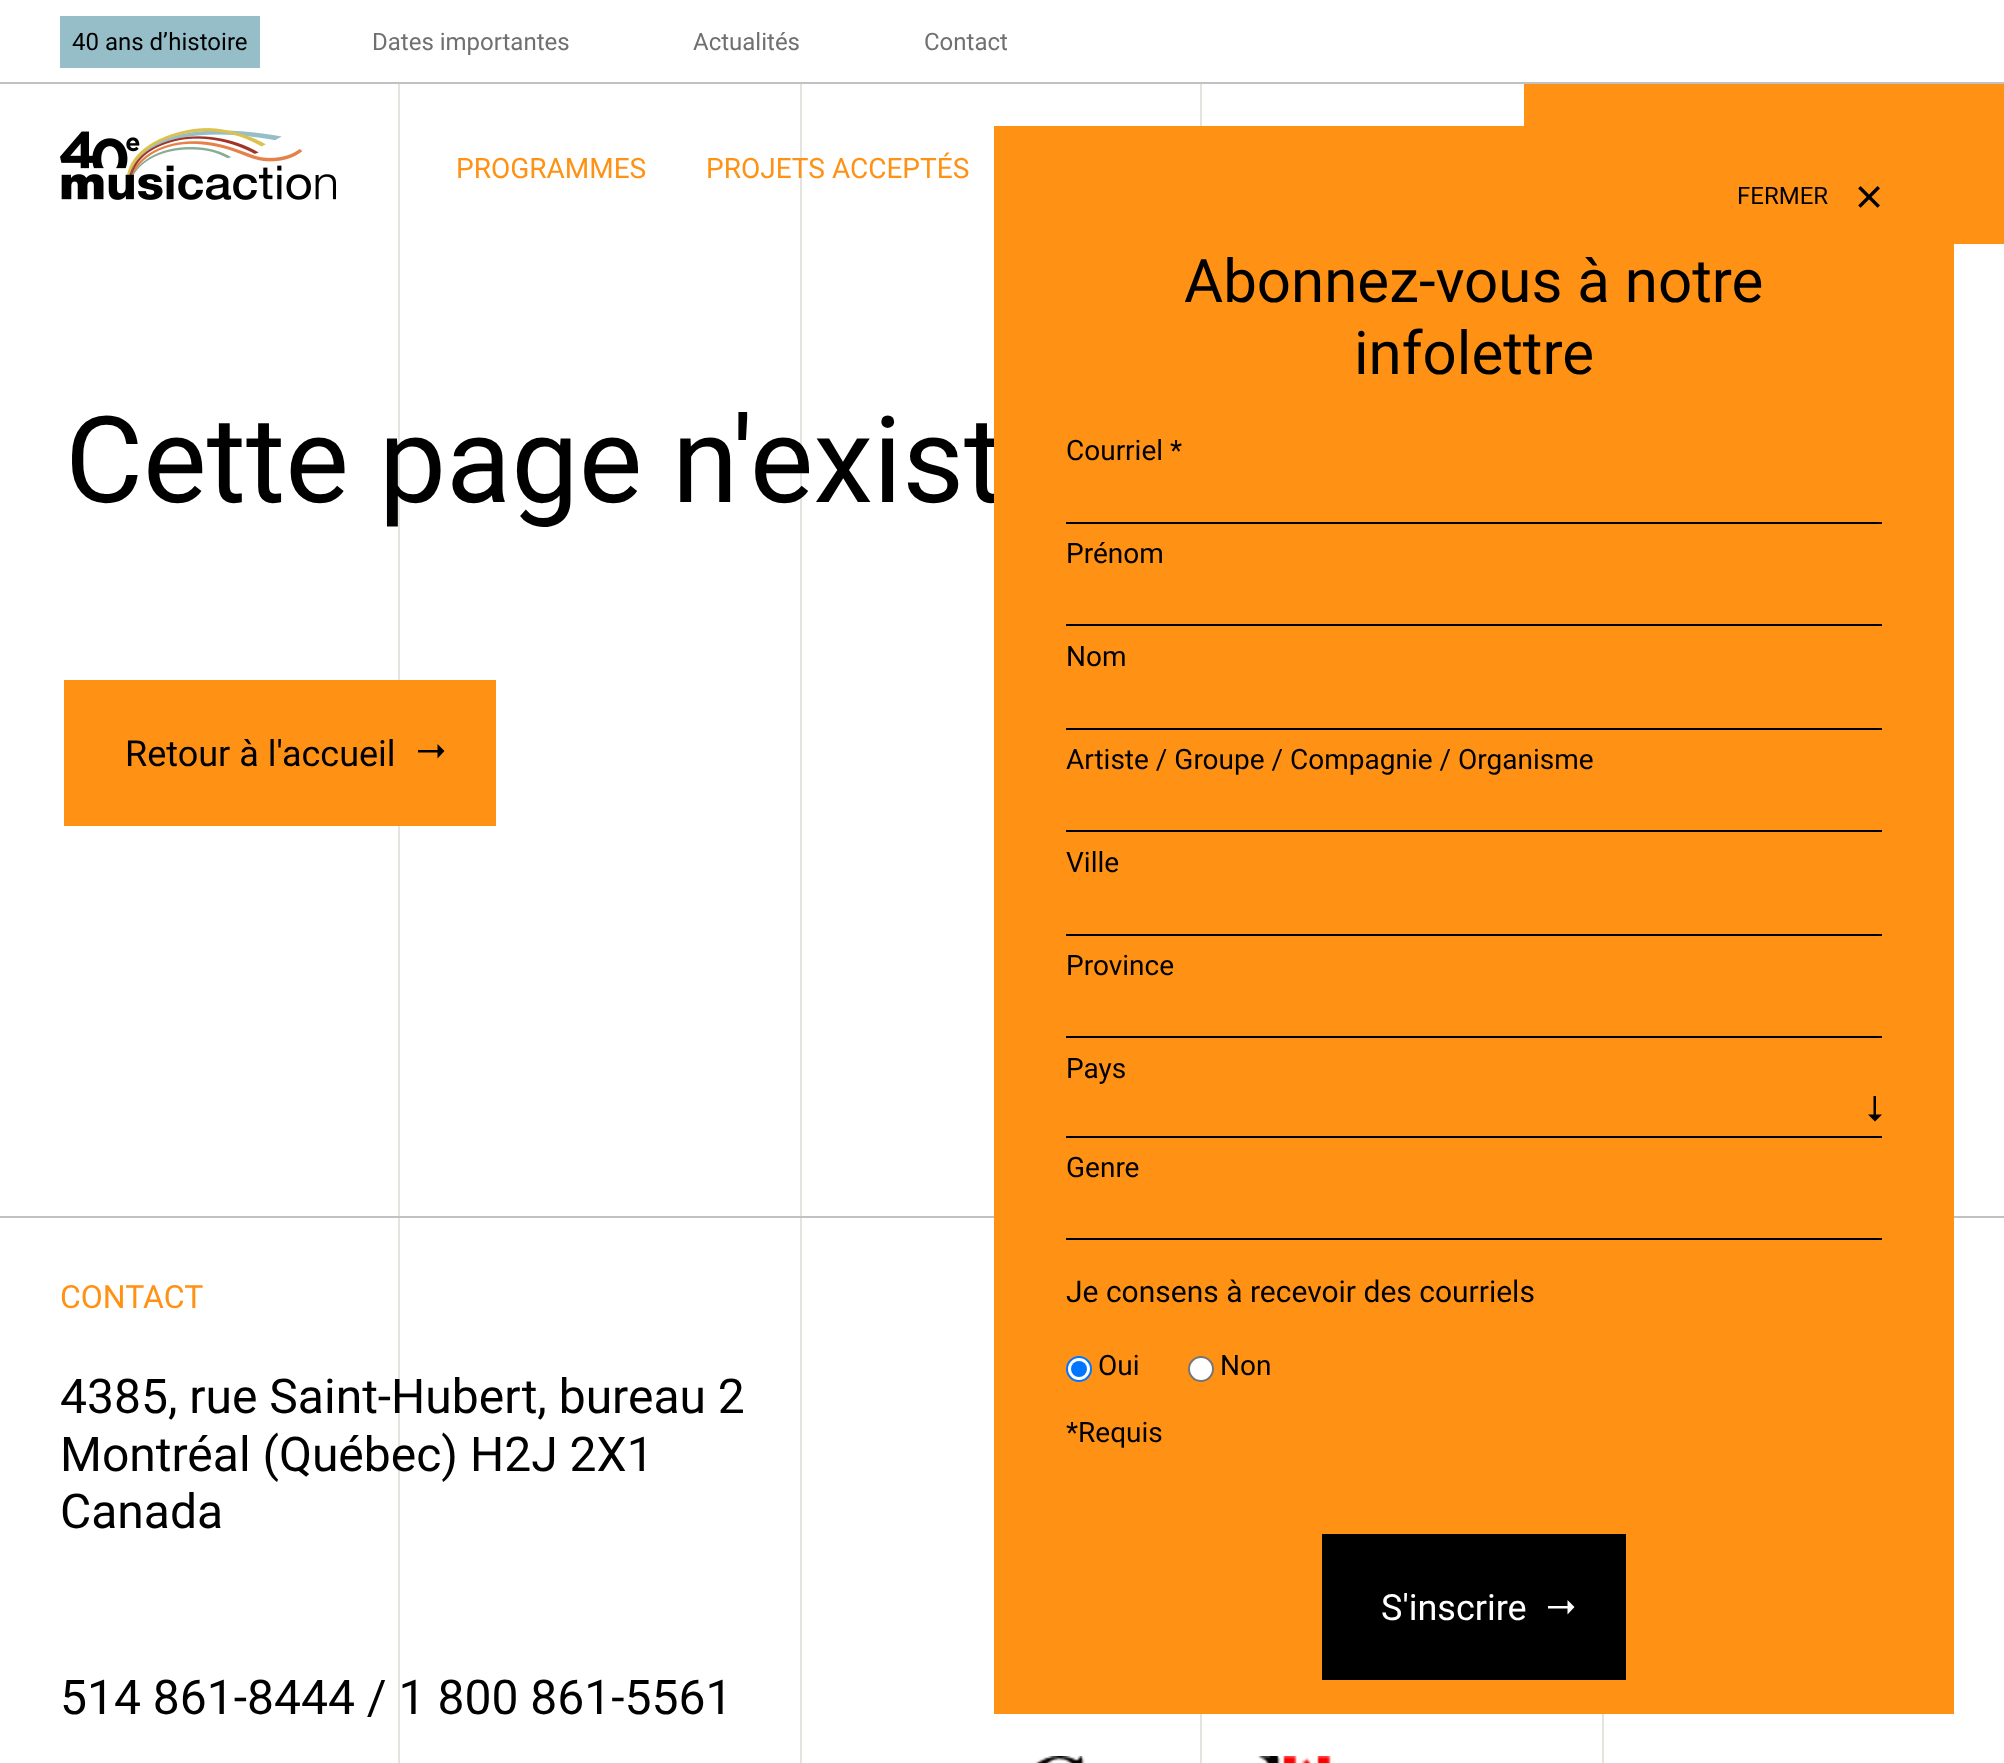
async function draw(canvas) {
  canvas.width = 2004
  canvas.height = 1763
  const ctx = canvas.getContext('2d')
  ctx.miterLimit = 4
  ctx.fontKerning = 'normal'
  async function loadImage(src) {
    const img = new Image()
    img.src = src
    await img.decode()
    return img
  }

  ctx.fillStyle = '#fff'
  ctx.fillRect(0, 0, 2004, 1763)
  ctx.fillStyle = '#c1c1c1'
  ctx.fillRect(0, 82, 2004, 2)
  ctx.fillStyle = '#95bec9'
  ctx.fillRect(60, 16, 200, 52)
  ctx.font = '24px Roboto'
  ctx.fillStyle = '#000'
  ctx.fillText('40 ans d’histoire', 72, 50)
  ctx.fillStyle = '#707070'
  ctx.fillText('Dates importantes', 372, 50)
  ctx.fillText('Actualités', 693, 50)
  ctx.fillText('Contact', 924, 50)
  ctx.drawImage(await loadImage('image0.png'), 60, 128, 276, 72)
  ctx.font = '28px Roboto'
  ctx.fillStyle = '#ff9214'
  ctx.fillText('PROGRAMMES', 456, 178)
  ctx.fillStyle = '#e4e3de'
  ctx.fillRect(800, 84, 2, 1679)
  ctx.fillStyle = '#ff9214'
  ctx.fillText('PROJETS ACCEPTÉS', 706, 178)
  ctx.fillRect(1524, 84, 480, 160)
  ctx.fillStyle = '#e4e3de'
  ctx.fillRect(398, 84, 2, 1679)
  ctx.font = '120px Roboto'
  ctx.fillStyle = '#000'
  ctx.fillText('Cette page n\'exist', 65, 502)
  ctx.fillStyle = '#ff9214'
  ctx.fillRect(64, 680, 432, 146)
  ctx.fillStyle = '#000'
  ctx.beginPath()
  ctx.moveTo(444.5, 751)
  ctx.lineTo(437.5, 744)
  ctx.lineTo(437.5, 750)
  ctx.lineTo(418, 750)
  ctx.lineTo(418, 752.5)
  ctx.lineTo(437.5, 752.5)
  ctx.lineTo(437.5, 758.5)
  ctx.closePath()
  ctx.fill()
  ctx.font = '36px Roboto'
  ctx.fillText('Retour à l\'accueil', 125, 766)
  ctx.fillStyle = '#e4e3de'
  ctx.fillRect(1200, 84, 2, 1679)
  ctx.fillStyle = '#c1c1c1'
  ctx.fillRect(0, 1216, 2004, 2)
  ctx.fillStyle = '#ff9214'
  ctx.fillRect(994, 126, 960, 1588)
  ctx.font = '24px Roboto'
  ctx.fillStyle = '#000'
  ctx.fillText('FERMER', 1737, 204)
  ctx.drawImage(await loadImage('image1.png'), 1858, 186, 22, 22)
  ctx.font = '60px Roboto'
  ctx.fillText('Abonnez-vous à notre', 1184, 302)
  ctx.fillText('infolettre', 1354, 374)
  ctx.font = '28px Roboto'
  ctx.fillText('Courriel *', 1066, 460)
  ctx.fillRect(1066, 522, 816, 2)
  ctx.fillText('Prénom', 1066, 563)
  ctx.fillRect(1066, 624, 816, 2)
  ctx.fillText('Nom', 1066, 666)
  ctx.fillRect(1066, 728, 816, 2)
  ctx.fillText('Artiste / Groupe / Compagnie / Organisme', 1066, 769)
  ctx.fillRect(1066, 830, 816, 2)
  ctx.fillText('Ville', 1066, 872)
  ctx.fillRect(1066, 934, 816, 2)
  ctx.fillText('Province', 1066, 975)
  ctx.fillRect(1066, 1036, 816, 2)
  ctx.fillText('Pays', 1066, 1078)
  ctx.beginPath()
  ctx.moveTo(1875, 1121.5)
  ctx.lineTo(1882, 1114.5)
  ctx.lineTo(1876, 1114.5)
  ctx.lineTo(1876, 1096)
  ctx.lineTo(1873.5, 1096)
  ctx.lineTo(1873.5, 1114.5)
  ctx.lineTo(1868, 1114.5)
  ctx.closePath()
  ctx.fill()
  ctx.fillRect(1066, 1136, 816, 2)
  ctx.fillText('Genre', 1066, 1177)
  ctx.fillRect(1066, 1238, 816, 2)
  ctx.font = '30px Roboto'
  ctx.fillText('Je consens à recevoir des courriels', 1066, 1302)
  ctx.fillStyle = '#fff'
  ctx.beginPath()
  ctx.arc(1079, 1369, 12, 0, 2 * Math.PI)
  ctx.fill()
  ctx.strokeStyle = '#0075ff'
  ctx.lineWidth = 2
  ctx.stroke()
  ctx.fillStyle = '#0075ff'
  ctx.beginPath()
  ctx.arc(1079, 1369, 8, 0, 2 * Math.PI)
  ctx.fill()
  ctx.font = '28px Roboto'
  ctx.fillStyle = '#000'
  ctx.fillText('Oui', 1098, 1375)
  ctx.fillStyle = '#fff'
  ctx.beginPath()
  ctx.arc(1201, 1369, 12, 0, 2 * Math.PI)
  ctx.fill()
  ctx.strokeStyle = '#767676'
  ctx.stroke()
  ctx.fillStyle = '#000'
  ctx.fillText('Non', 1220, 1375)
  ctx.fillText('*Requis', 1066, 1442)
  ctx.fillRect(1322, 1534, 304, 146)
  ctx.fillStyle = '#fff'
  ctx.beginPath()
  ctx.moveTo(1574.5, 1607)
  ctx.lineTo(1567.5, 1600)
  ctx.lineTo(1567.5, 1606)
  ctx.lineTo(1548, 1606)
  ctx.lineTo(1548, 1608.5)
  ctx.lineTo(1567.5, 1608.5)
  ctx.lineTo(1567.5, 1614.5)
  ctx.closePath()
  ctx.fill()
  ctx.font = '36px Roboto'
  ctx.fillText('S\'inscrire', 1381, 1620)
  ctx.font = '32px Roboto'
  ctx.fillStyle = '#ff9214'
  ctx.fillText('CONTACT', 60, 1308)
  ctx.font = '48px Roboto'
  ctx.fillStyle = '#000'
  ctx.fillText('4385, rue Saint-Hubert, bureau 2', 60, 1413)
  ctx.fillText('Montréal (Québec) H2J 2X1', 60, 1471)
  ctx.fillText('Canada', 60, 1528)
  ctx.fillText('514 861-8444 / 1 800 861-5561', 60, 1714)
  ctx.drawImage(await loadImage('image2.png'), 1035, 1756, 296, 7)
  ctx.fillStyle = '#e4e3de'
  ctx.fillRect(1602, 1714, 2, 49)
}

draw(document.querySelector('canvas'))
